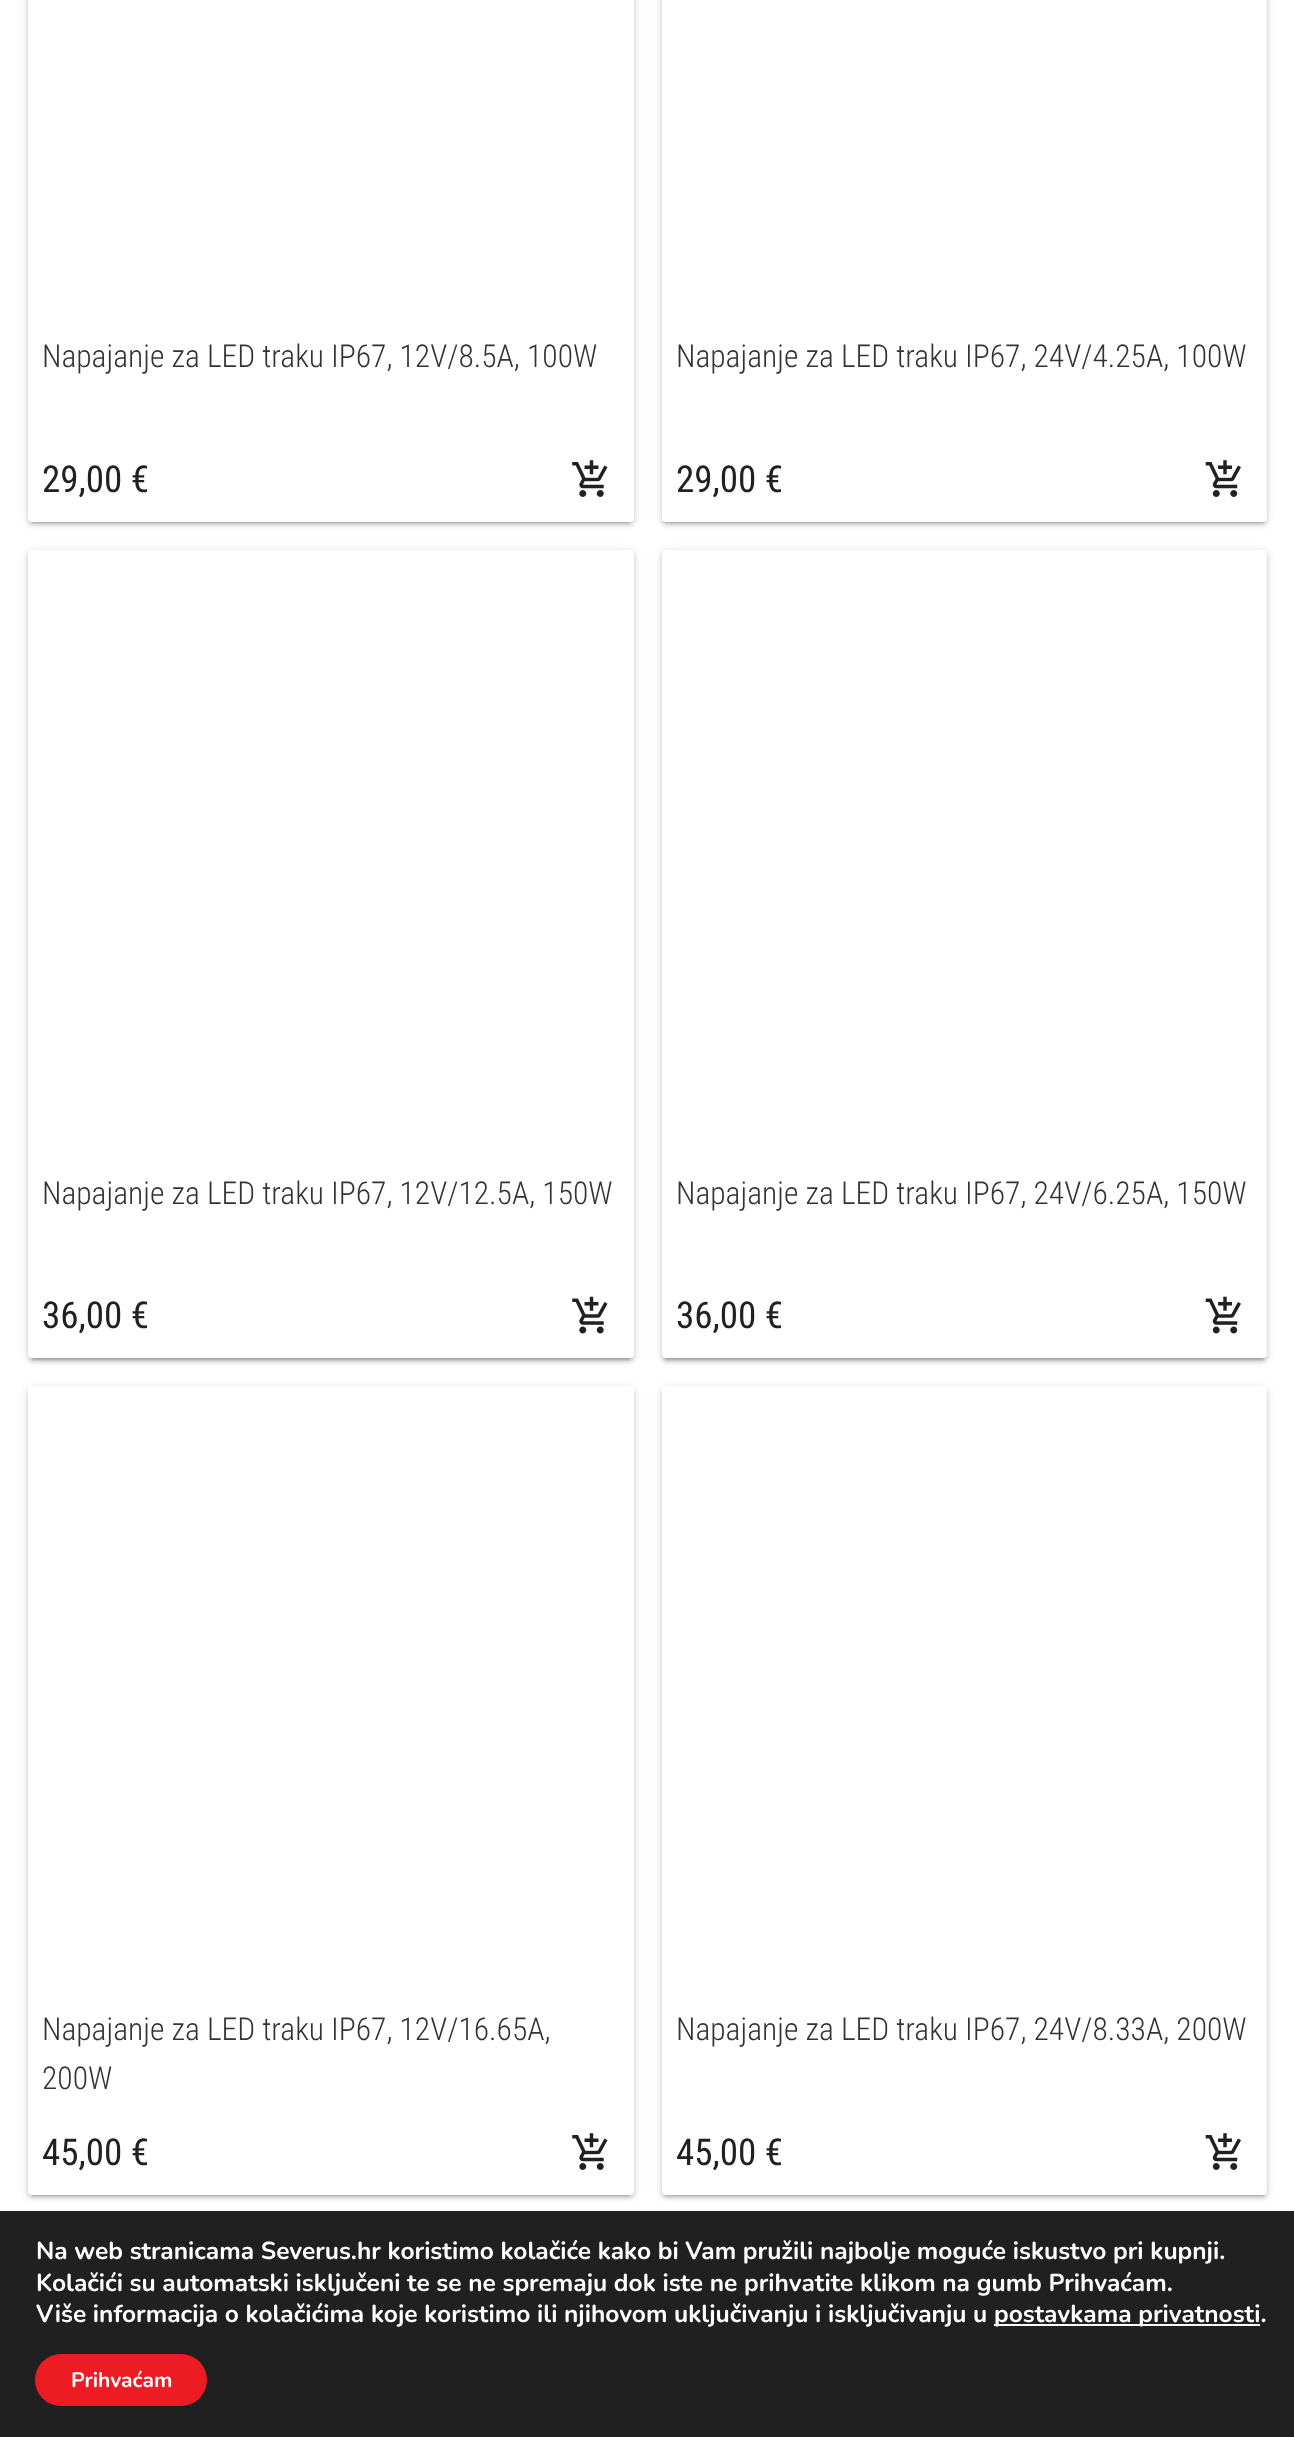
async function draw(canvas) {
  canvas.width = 1294
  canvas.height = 2437
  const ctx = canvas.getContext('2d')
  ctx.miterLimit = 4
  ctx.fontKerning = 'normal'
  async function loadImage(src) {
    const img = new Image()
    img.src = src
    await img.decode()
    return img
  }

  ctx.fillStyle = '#fff'
  ctx.fillRect(0, 0, 1294, 2437)
  ctx.fillStyle = '#0000001f'
  ctx.filter = 'blur(4.5px)'
  ctx.beginPath()
  ctx.roundRect(28, -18, 606, 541, 4)
  ctx.fill()
  ctx.filter = 'none'
  ctx.fillStyle = '#00000033'
  ctx.filter = 'blur(1px)'
  ctx.beginPath()
  ctx.rect(32, -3, 598, 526)
  ctx.fill()
  ctx.filter = 'none'
  ctx.fillStyle = '#00000024'
  ctx.filter = 'blur(2px)'
  ctx.beginPath()
  ctx.roundRect(28, -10, 606, 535, 4)
  ctx.fill()
  ctx.filter = 'none'
  ctx.fillStyle = '#fff'
  ctx.beginPath()
  ctx.roundRect(28, -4, 606, 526, 4)
  ctx.fill()
  ctx.font = '300 31.5px Roboto Condensed'
  ctx.fillStyle = '#333'
  ctx.fillText('Napajanje za LED traku IP67, 12V/8.5A, 100W', 42, 367)
  ctx.font = '37px Roboto Condensed'
  ctx.fillStyle = '#212121'
  ctx.fillText('29,00 €', 42, 492)
  ctx.drawImage(await loadImage('image0.png'), 572, 460, 36, 37)
  ctx.fillStyle = '#0000001f'
  ctx.filter = 'blur(4.5px)'
  ctx.beginPath()
  ctx.roundRect(662, -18, 605, 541, 4)
  ctx.fill()
  ctx.filter = 'none'
  ctx.fillStyle = '#00000033'
  ctx.filter = 'blur(1px)'
  ctx.beginPath()
  ctx.rect(665, -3, 599, 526)
  ctx.fill()
  ctx.filter = 'none'
  ctx.fillStyle = '#00000024'
  ctx.filter = 'blur(2px)'
  ctx.beginPath()
  ctx.roundRect(662, -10, 605, 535, 4)
  ctx.fill()
  ctx.filter = 'none'
  ctx.fillStyle = '#fff'
  ctx.beginPath()
  ctx.roundRect(662, -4, 605, 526, 4)
  ctx.fill()
  ctx.font = '300 31.5px Roboto Condensed'
  ctx.fillStyle = '#333'
  ctx.fillText('Napajanje za LED traku IP67, 24V/4.25A, 100W', 676, 367)
  ctx.font = '37px Roboto Condensed'
  ctx.fillStyle = '#212121'
  ctx.fillText('29,00 €', 676, 492)
  ctx.drawImage(await loadImage('image1.png'), 1205, 460, 36, 37)
  ctx.fillStyle = '#0000001f'
  ctx.filter = 'blur(4.5px)'
  ctx.beginPath()
  ctx.roundRect(28, 551, 606, 809, 4)
  ctx.fill()
  ctx.filter = 'none'
  ctx.fillStyle = '#00000033'
  ctx.filter = 'blur(1px)'
  ctx.beginPath()
  ctx.rect(32, 558, 598, 802)
  ctx.fill()
  ctx.filter = 'none'
  ctx.fillStyle = '#00000024'
  ctx.filter = 'blur(2px)'
  ctx.beginPath()
  ctx.roundRect(28, 553, 606, 809, 4)
  ctx.fill()
  ctx.filter = 'none'
  ctx.fillStyle = '#fff'
  ctx.beginPath()
  ctx.roundRect(28, 550, 606, 808, 4)
  ctx.fill()
  ctx.font = '300 31.5px Roboto Condensed'
  ctx.fillStyle = '#333'
  ctx.fillText('Napajanje za LED traku IP67, 12V/12.5A, 150W', 42, 1204)
  ctx.font = '37px Roboto Condensed'
  ctx.fillStyle = '#212121'
  ctx.fillText('36,00 €', 42, 1328)
  ctx.drawImage(await loadImage('image2.png'), 572, 1296, 36, 38)
  ctx.fillStyle = '#0000001f'
  ctx.filter = 'blur(4.5px)'
  ctx.beginPath()
  ctx.roundRect(662, 551, 605, 809, 4)
  ctx.fill()
  ctx.filter = 'none'
  ctx.fillStyle = '#00000033'
  ctx.filter = 'blur(1px)'
  ctx.beginPath()
  ctx.rect(665, 558, 599, 802)
  ctx.fill()
  ctx.filter = 'none'
  ctx.fillStyle = '#00000024'
  ctx.filter = 'blur(2px)'
  ctx.beginPath()
  ctx.roundRect(662, 553, 605, 809, 4)
  ctx.fill()
  ctx.filter = 'none'
  ctx.fillStyle = '#fff'
  ctx.beginPath()
  ctx.roundRect(662, 550, 605, 808, 4)
  ctx.fill()
  ctx.font = '300 31.5px Roboto Condensed'
  ctx.fillStyle = '#333'
  ctx.fillText('Napajanje za LED traku IP67, 24V/6.25A, 150W', 676, 1204)
  ctx.font = '37px Roboto Condensed'
  ctx.fillStyle = '#212121'
  ctx.fillText('36,00 €', 676, 1328)
  ctx.drawImage(await loadImage('image3.png'), 1205, 1296, 36, 38)
  ctx.fillStyle = '#0000001f'
  ctx.filter = 'blur(4.5px)'
  ctx.beginPath()
  ctx.roundRect(28, 1388, 606, 808, 4)
  ctx.fill()
  ctx.filter = 'none'
  ctx.fillStyle = '#00000033'
  ctx.filter = 'blur(1px)'
  ctx.beginPath()
  ctx.rect(32, 1395, 598, 801)
  ctx.fill()
  ctx.filter = 'none'
  ctx.fillStyle = '#00000024'
  ctx.filter = 'blur(2px)'
  ctx.beginPath()
  ctx.roundRect(28, 1390, 606, 808, 4)
  ctx.fill()
  ctx.filter = 'none'
  ctx.fillStyle = '#fff'
  ctx.beginPath()
  ctx.roundRect(28, 1386, 606, 809, 4)
  ctx.fill()
  ctx.font = '300 31.5px Roboto Condensed'
  ctx.fillStyle = '#333'
  ctx.fillText('Napajanje za LED traku IP67, 12V/16.65A,', 42, 2040)
  ctx.fillText('200W', 42, 2089)
  ctx.font = '37px Roboto Condensed'
  ctx.fillStyle = '#212121'
  ctx.fillText('45,00 €', 42, 2165)
  ctx.drawImage(await loadImage('image0.png'), 572, 2133, 36, 37)
  ctx.fillStyle = '#0000001f'
  ctx.filter = 'blur(4.5px)'
  ctx.beginPath()
  ctx.roundRect(662, 1388, 605, 808, 4)
  ctx.fill()
  ctx.filter = 'none'
  ctx.fillStyle = '#00000033'
  ctx.filter = 'blur(1px)'
  ctx.beginPath()
  ctx.rect(665, 1395, 599, 801)
  ctx.fill()
  ctx.filter = 'none'
  ctx.fillStyle = '#00000024'
  ctx.filter = 'blur(2px)'
  ctx.beginPath()
  ctx.roundRect(662, 1390, 605, 808, 4)
  ctx.fill()
  ctx.filter = 'none'
  ctx.fillStyle = '#fff'
  ctx.beginPath()
  ctx.roundRect(662, 1386, 605, 809, 4)
  ctx.fill()
  ctx.font = '300 31.5px Roboto Condensed'
  ctx.fillStyle = '#333'
  ctx.fillText('Napajanje za LED traku IP67, 24V/8.33A, 200W', 676, 2040)
  ctx.font = '37px Roboto Condensed'
  ctx.fillStyle = '#212121'
  ctx.fillText('45,00 €', 676, 2165)
  ctx.drawImage(await loadImage('image1.png'), 1205, 2133, 36, 37)
  ctx.fillStyle = '#202020'
  ctx.fillRect(0, 2211, 1294, 226)
  ctx.font = 'bold 24.5px Nunito'
  ctx.fillStyle = '#fff'
  ctx.fillText('Na web stranicama Severus.hr koristimo kolačiće kako bi Vam pružili najbolje moguće iskustvo pri kupnji.', 36, 2259)
  ctx.fillText('Kolačići su automatski isključeni te se ne spremaju dok iste ne prihvatite klikom na gumb Prihvaćam.', 36, 2291)
  ctx.fillText('Više informacija o kolačićima koje koristimo ili njihovom uključivanju i isključivanju u', 36, 2322)
  ctx.fillRect(994, 2324, 266, 2)
  ctx.fillText('postavkama privatnosti.', 994, 2322)
  ctx.fillStyle = '#ed1c24'
  ctx.beginPath()
  ctx.roundRect(35, 2354, 172, 52, 26)
  ctx.fill()
  ctx.font = 'bold 21px Nunito'
  ctx.fillStyle = '#fff'
  ctx.fillText('Prihvaćam', 71, 2387)
}

draw(document.querySelector('canvas'))
